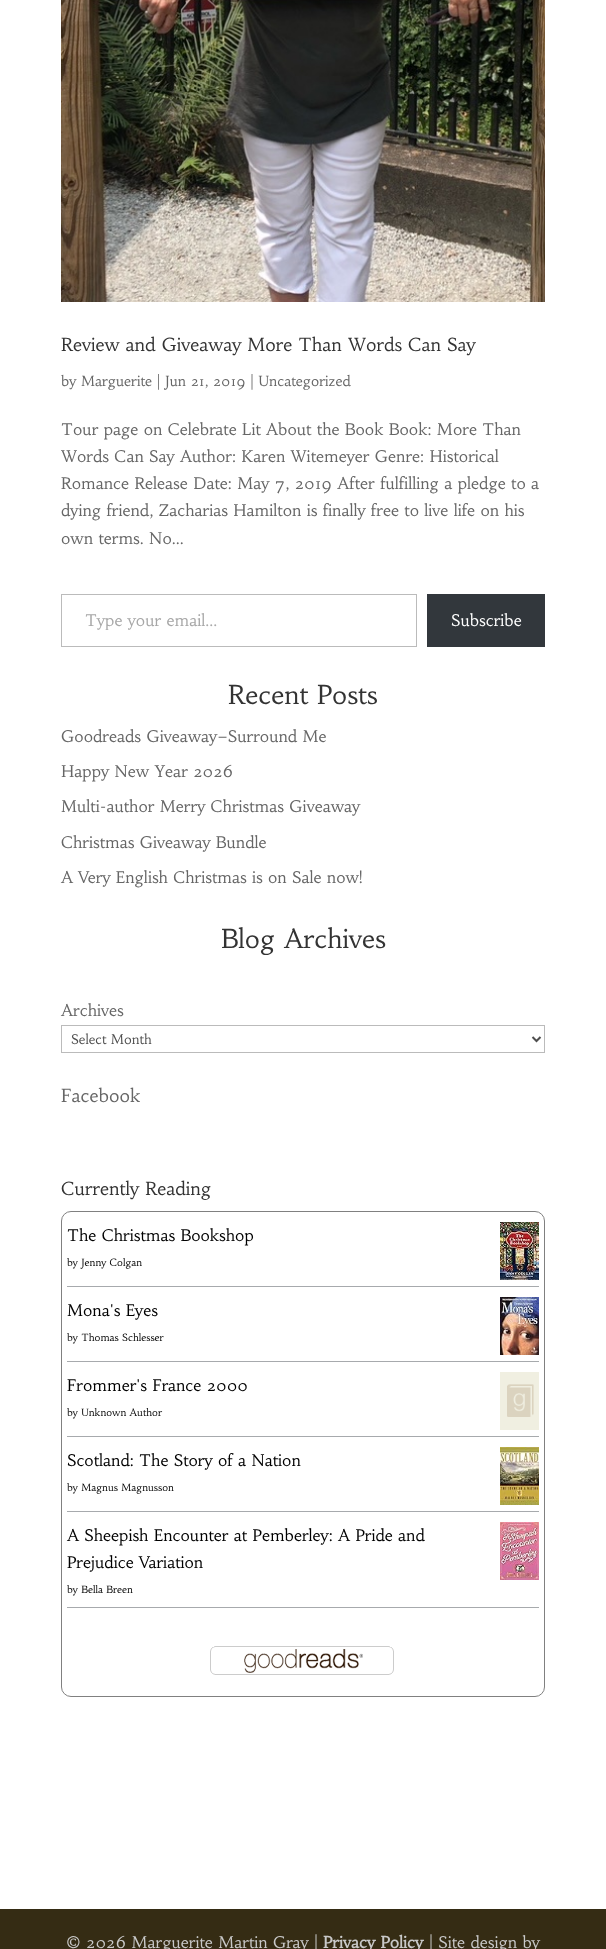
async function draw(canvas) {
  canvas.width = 606
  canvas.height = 1949
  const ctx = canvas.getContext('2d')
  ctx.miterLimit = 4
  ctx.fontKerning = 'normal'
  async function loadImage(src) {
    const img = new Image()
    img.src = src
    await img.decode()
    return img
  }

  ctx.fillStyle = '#fff'
  ctx.fillRect(0, 0, 606, 1949)
  ctx.drawImage(await loadImage('image0.png'), 61, 0, 484, 302)
  ctx.font = '18px Habibi'
  ctx.fillStyle = '#333'
  ctx.fillText('Review and Giveaway More Than Words Can Say', 61, 351)
  ctx.font = '14px Habibi'
  ctx.fillStyle = '#666'
  ctx.fillText('by Marguerite | Jun 21, 2019 | Uncategorized', 61, 386)
  ctx.font = '16px Habibi'
  ctx.fillText('Tour page on Celebrate Lit About the Book Book: More Than', 61, 435)
  ctx.fillText('Words Can Say Author: Karen Witemeyer Genre: Historical', 61, 462)
  ctx.fillText('Romance Release Date: May 7, 2019 After fulfilling a pledge to a', 61, 489)
  ctx.fillText('dying friend, Zacharias Hamilton is finally free to live life on his', 61, 516)
  ctx.fillText('own terms. No...', 61, 544)
  ctx.strokeStyle = '#bbb'
  ctx.strokeRect(61.5, 594.5, 355, 52)
  ctx.save()
  ctx.beginPath()
  ctx.rect(85, 610, 308, 20)
  ctx.clip()
  ctx.fillStyle = '#a7a7a7'
  ctx.fillText('Type your email…', 85, 626)
  ctx.restore()
  ctx.fillStyle = '#32373c'
  ctx.fillRect(427, 594, 118, 53)
  ctx.fillStyle = '#fff'
  ctx.fillText('Subscribe', 451, 626)
  ctx.font = '26px Habibi'
  ctx.fillStyle = '#333'
  ctx.fillText('Recent Posts', 228, 704)
  ctx.font = '16px Habibi'
  ctx.fillStyle = '#666'
  ctx.fillText('Goodreads Giveaway–Surround Me', 61, 742)
  ctx.fillText('Happy New Year 2026', 61, 777)
  ctx.fillText('Multi-author Merry Christmas Giveaway', 61, 812)
  ctx.fillText('Christmas Giveaway Bundle', 61, 848)
  ctx.fillText('A Very English Christmas is on Sale now!', 61, 883)
  ctx.font = '26px Habibi'
  ctx.fillStyle = '#333'
  ctx.fillText('Blog Archives', 221, 948)
  ctx.font = '16px Habibi'
  ctx.fillStyle = '#666'
  ctx.fillText('Archives', 61, 1016)
  ctx.strokeRect(61.5, 1025.5, 483, 27)
  ctx.beginPath()
  ctx.moveTo(532.5, 1037)
  ctx.lineTo(536.5, 1041)
  ctx.lineTo(540.5, 1037)
  ctx.strokeStyle = '#4e4e4e'
  ctx.lineWidth = 2
  ctx.stroke()
  ctx.font = '13.25px Habibi'
  ctx.fillStyle = '#4e4e4e'
  ctx.fillText('Select Month', 71, 1044)
  ctx.font = '18px Habibi'
  ctx.fillStyle = '#666'
  ctx.fillText('Facebook', 61, 1102)
  ctx.fillStyle = '#333'
  ctx.fillText('Currently Reading', 61, 1195)
  ctx.beginPath()
  ctx.roundRect(61.5, 1211.5, 483, 485, 9.5)
  ctx.strokeStyle = '#808080'
  ctx.lineWidth = 1
  ctx.stroke()
  ctx.fillStyle = '#a7aaad'
  ctx.fillRect(67, 1286, 472, 1)
  ctx.font = '16px Habibi'
  ctx.fillStyle = '#000'
  ctx.fillText('The Christmas Bookshop', 67, 1241)
  ctx.drawImage(await loadImage('image1.png'), 500, 1222, 39, 58)
  ctx.font = '10px Habibi'
  ctx.fillText('by Jenny Colgan', 67, 1266)
  ctx.fillStyle = '#a7aaad'
  ctx.fillRect(67, 1361, 472, 1)
  ctx.font = '16px Habibi'
  ctx.fillStyle = '#000'
  ctx.fillText('Mona\'s Eyes', 67, 1316)
  ctx.drawImage(await loadImage('image2.png'), 500, 1297, 39, 58)
  ctx.font = '10px Habibi'
  ctx.fillText('by Thomas Schlesser', 67, 1341)
  ctx.fillStyle = '#a7aaad'
  ctx.fillRect(67, 1436, 472, 1)
  ctx.font = '16px Habibi'
  ctx.fillStyle = '#000'
  ctx.fillText('Frommer\'s France 2000', 67, 1391)
  ctx.drawImage(await loadImage('image3.png'), 500, 1372, 39, 58)
  ctx.font = '10px Habibi'
  ctx.fillText('by Unknown Author', 67, 1416)
  ctx.fillStyle = '#a7aaad'
  ctx.fillRect(67, 1511, 472, 1)
  ctx.font = '16px Habibi'
  ctx.fillStyle = '#000'
  ctx.fillText('Scotland: The Story of a Nation', 67, 1466)
  ctx.drawImage(await loadImage('image4.png'), 500, 1447, 39, 58)
  ctx.font = '10px Habibi'
  ctx.fillText('by Magnus Magnusson', 67, 1491)
  ctx.fillStyle = '#a7aaad'
  ctx.fillRect(67, 1607, 472, 1)
  ctx.font = '16px Habibi'
  ctx.fillStyle = '#000'
  ctx.fillText('A Sheepish Encounter at Pemberley: A Pride and', 67, 1541)
  ctx.fillText('Prejudice Variation', 67, 1568)
  ctx.drawImage(await loadImage('image5.png'), 500, 1522, 39, 58)
  ctx.font = '10px Habibi'
  ctx.fillText('by Bella Breen', 67, 1593)
  ctx.drawImage(await loadImage('image6.png'), 210, 1646, 184, 29)
  ctx.fillStyle = '#352c14'
  ctx.fillRect(0, 1909, 606, 40)
  ctx.font = '16px Habibi'
  ctx.fillStyle = '#c9c9c9'
  ctx.fillText('© 2026 Marguerite Martin Gray |', 66, 1948)
  ctx.font = 'bold 16px Habibi'
  ctx.fillText('Privacy Policy', 323, 1948)
  ctx.font = '16px Habibi'
  ctx.fillText('| Site design by', 429, 1948)
}

draw(document.querySelector('canvas'))
